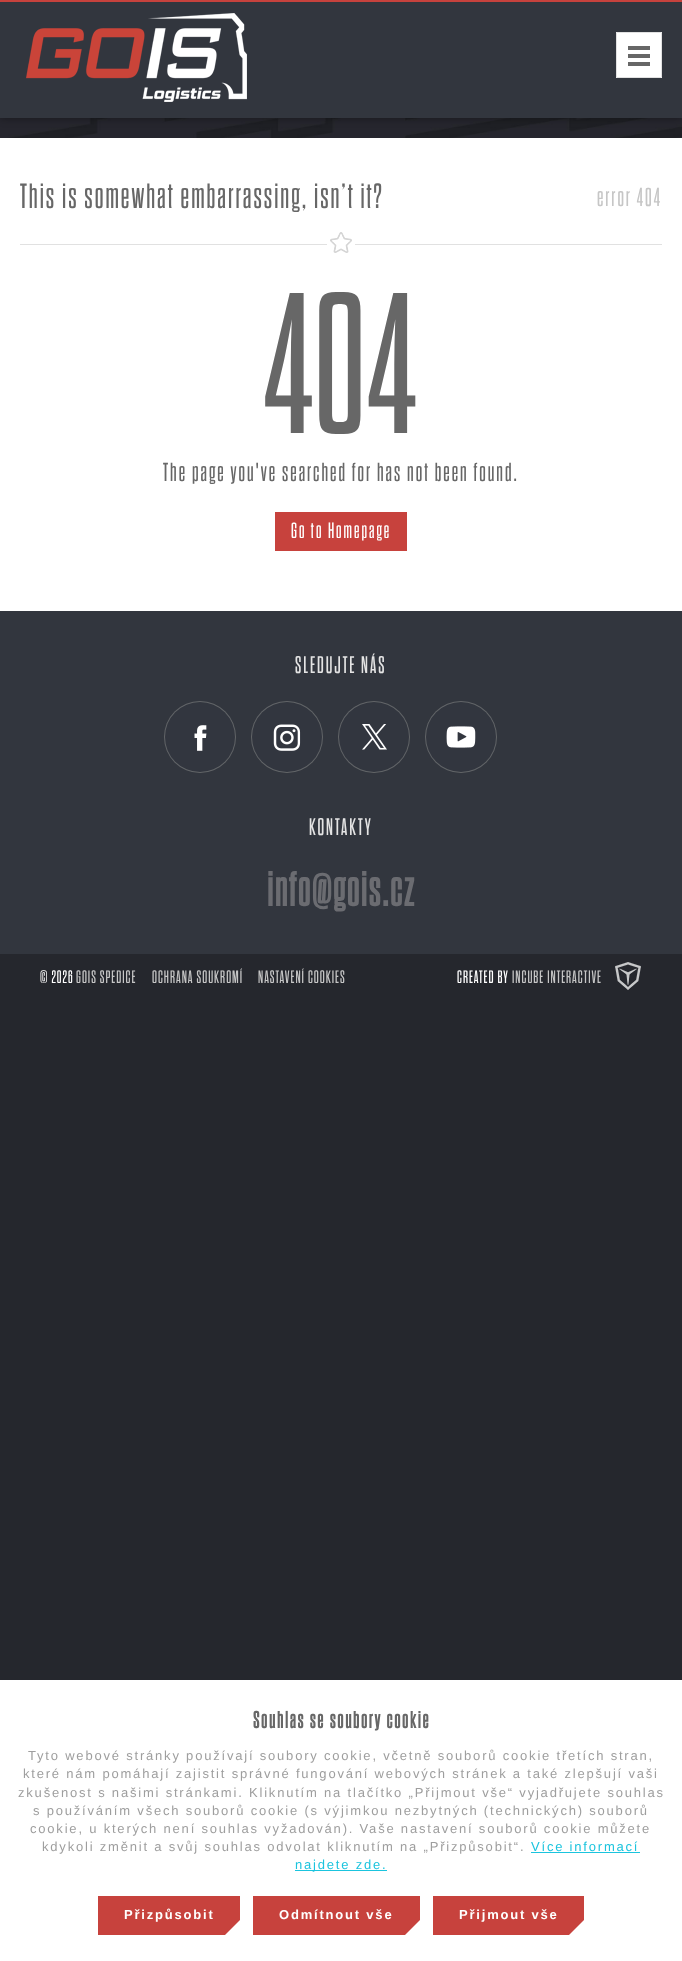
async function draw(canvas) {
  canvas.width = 682
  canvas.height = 1961
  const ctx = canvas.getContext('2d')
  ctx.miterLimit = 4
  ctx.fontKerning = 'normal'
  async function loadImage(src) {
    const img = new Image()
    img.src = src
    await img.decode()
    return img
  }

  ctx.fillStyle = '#25272d'
  ctx.fillRect(0, 0, 682, 1961)
  ctx.drawImage(await loadImage('image0.png'), 0, 118, 682, 20)
  ctx.fillStyle = '#00000066'
  ctx.filter = 'blur(4px)'
  ctx.beginPath()
  ctx.rect(0, 0, 682, 118)
  ctx.fill()
  ctx.filter = 'none'
  ctx.fillStyle = '#32363e'
  ctx.fillRect(0, 2, 682, 116)
  ctx.fillStyle = '#c7423d'
  ctx.fillRect(0, 0, 682, 2)
  ctx.drawImage(await loadImage('image1.png'), 26, 13, 221, 89)
  ctx.fillStyle = '#676767'
  ctx.fillRect(628, 46, 22, 20)
  ctx.drawImage(await loadImage('image2.png'), 616, 32, 46, 46)
  ctx.fillStyle = '#fff'
  ctx.fillRect(0, 138, 682, 473)
  ctx.fillStyle = '#e1e1e1'
  ctx.fillRect(20, 244, 642, 1)
  ctx.drawImage(await loadImage('image3.png'), 327, 232, 28, 21)
  ctx.letterSpacing = '2px'
  ctx.font = '35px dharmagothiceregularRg'
  ctx.fillStyle = '#676767'
  ctx.fillText('This is somewhat embarrassing, isn’t it?', 20, 208)
  ctx.font = '26px dharmagothiceregularRg'
  ctx.fillStyle = '#c6c6c6'
  ctx.fillText('error 404', 597, 206)
  ctx.font = '200px dharmagothiceregularRg'
  ctx.fillStyle = '#676767'
  ctx.fillText('404', 264, 433)
  ctx.font = '26px dharmagothiceregularRg'
  ctx.fillText('The page you\'ve searched for has not been found.', 163, 481)
  ctx.fillStyle = '#c7423d'
  ctx.fillRect(275, 512, 132, 39)
  ctx.font = '22px dharmagothiceregularRg'
  ctx.fillStyle = '#fff'
  ctx.fillText('Go to Homepage', 291, 538)
  ctx.fillStyle = '#32363e'
  ctx.fillRect(0, 611, 682, 343)
  ctx.font = '24px dharmagothiceregularRg'
  ctx.fillStyle = '#e4e4e4'
  ctx.fillText('SLEDUJTE NÁS', 295, 673)
  ctx.fillStyle = '#626568'
  ctx.beginPath()
  ctx.arc(200, 737, 36, 0, 2 * Math.PI)
  ctx.fill()
  ctx.fillStyle = '#32363f'
  ctx.beginPath()
  ctx.arc(200, 737, 35, 0, 2 * Math.PI)
  ctx.fill()
  ctx.drawImage(await loadImage('image4.png'), 194, 725, 13, 26)
  ctx.fillStyle = '#626568'
  ctx.beginPath()
  ctx.arc(287, 737, 36, 0, 2 * Math.PI)
  ctx.fill()
  ctx.fillStyle = '#32363f'
  ctx.beginPath()
  ctx.arc(287, 737, 35, 0, 2 * Math.PI)
  ctx.fill()
  ctx.drawImage(await loadImage('image5.png'), 273, 724, 28, 27)
  ctx.fillStyle = '#626568'
  ctx.beginPath()
  ctx.arc(374, 737, 36, 0, 2 * Math.PI)
  ctx.fill()
  ctx.fillStyle = '#32363f'
  ctx.beginPath()
  ctx.arc(374, 737, 35, 0, 2 * Math.PI)
  ctx.fill()
  ctx.drawImage(await loadImage('image6.png'), 362, 724, 25, 26)
  ctx.fillStyle = '#626568'
  ctx.beginPath()
  ctx.arc(461, 737, 36, 0, 2 * Math.PI)
  ctx.fill()
  ctx.fillStyle = '#32363f'
  ctx.beginPath()
  ctx.arc(461, 737, 35, 0, 2 * Math.PI)
  ctx.fill()
  ctx.drawImage(await loadImage('image7.png'), 446, 726, 30, 22)
  ctx.fillStyle = '#e4e4e4'
  ctx.fillText('KONTAKTY', 309, 835)
  ctx.font = 'bold 48px dharmagothiceregularRg'
  ctx.fillStyle = '#6b6c71'
  ctx.fillText('info@gois.cz', 267, 906)
  ctx.letterSpacing = '1px'
  ctx.font = '18px dharmagothiceregularRg'
  ctx.fillStyle = '#fff'
  ctx.fillText('© 2026', 40, 983)
  ctx.fillStyle = '#c6c6c6'
  ctx.fillText('GOIS SPEDICE', 76, 983)
  ctx.fillText('OCHRANA SOUKROMÍ', 152, 983)
  ctx.fillText('NASTAVENÍ COOKIES', 258, 983)
  ctx.fillStyle = '#fff'
  ctx.fillText('CREATED BY', 457, 983)
  ctx.fillStyle = '#c6c6c6'
  ctx.fillText('INCUBE INTERACTIVE', 512, 983)
  ctx.drawImage(await loadImage('image8.png'), 615, 962, 26, 28)
  ctx.fillStyle = '#fff'
  ctx.fillRect(0, 1680, 682, 281)
  ctx.letterSpacing = '2px'
  ctx.font = 'bold 23.5px dharmagothiceregularRg'
  ctx.fillStyle = '#676767'
  ctx.fillText('Souhlas se soubory cookie', 253, 1728)
  ctx.letterSpacing = '1.8px'
  ctx.font = '13px Liberation Sans'
  ctx.fillStyle = '#9e9e9e'
  ctx.fillText('Tyto webové stránky používají soubory cookie, včetně souborů cookie třetích stran,', 28, 1760)
  ctx.fillText('které nám pomáhají zajistit správné fungování webových stránek a také zlepšují vaši', 23, 1778)
  ctx.fillText('zkušenost s našimi stránkami. Kliknutím na tlačítko „Přijmout vše“ vyjadřujete souhlas', 18, 1797)
  ctx.fillText('s používáním všech souborů cookie (s výjimkou nezbytných (technických) souborů', 33, 1815)
  ctx.fillText('cookie, u kterých není souhlas vyžadován). Vaše nastavení souborů cookie můžete', 30, 1833)
  ctx.fillText('kdykoli změnit a svůj souhlas odvolat kliknutím na „Přizpůsobit“.', 42, 1851)
  ctx.fillStyle = '#1bc4de'
  ctx.fillText('Více informací', 531, 1851)
  ctx.fillRect(531, 1852, 109, 1)
  ctx.fillRect(295, 1870, 92, 1)
  ctx.fillText('najdete zde.', 295, 1869)
  ctx.fillStyle = '#c7423d'
  ctx.beginPath()
  ctx.moveTo(98, 1935)
  ctx.lineTo(225, 1935)
  ctx.lineTo(240, 1920)
  ctx.lineTo(240, 1896)
  ctx.lineTo(98, 1896)
  ctx.closePath()
  ctx.fill()
  ctx.font = 'bold 13px Liberation Sans'
  ctx.fillStyle = '#fff'
  ctx.fillText('Přizpůsobit', 124, 1919)
  ctx.fillStyle = '#c7423d'
  ctx.beginPath()
  ctx.moveTo(253, 1896)
  ctx.lineTo(253, 1935)
  ctx.lineTo(405, 1935)
  ctx.lineTo(420, 1920)
  ctx.lineTo(420, 1896)
  ctx.closePath()
  ctx.fill()
  ctx.fillStyle = '#fff'
  ctx.fillText('Odmítnout vše', 279, 1919)
  ctx.fillStyle = '#c7423d'
  ctx.beginPath()
  ctx.moveTo(433, 1935)
  ctx.lineTo(569, 1935)
  ctx.lineTo(584, 1920)
  ctx.lineTo(584, 1896)
  ctx.lineTo(433, 1896)
  ctx.closePath()
  ctx.fill()
  ctx.fillStyle = '#fff'
  ctx.fillText('Přijmout vše', 459, 1919)
}

draw(document.querySelector('canvas'))
